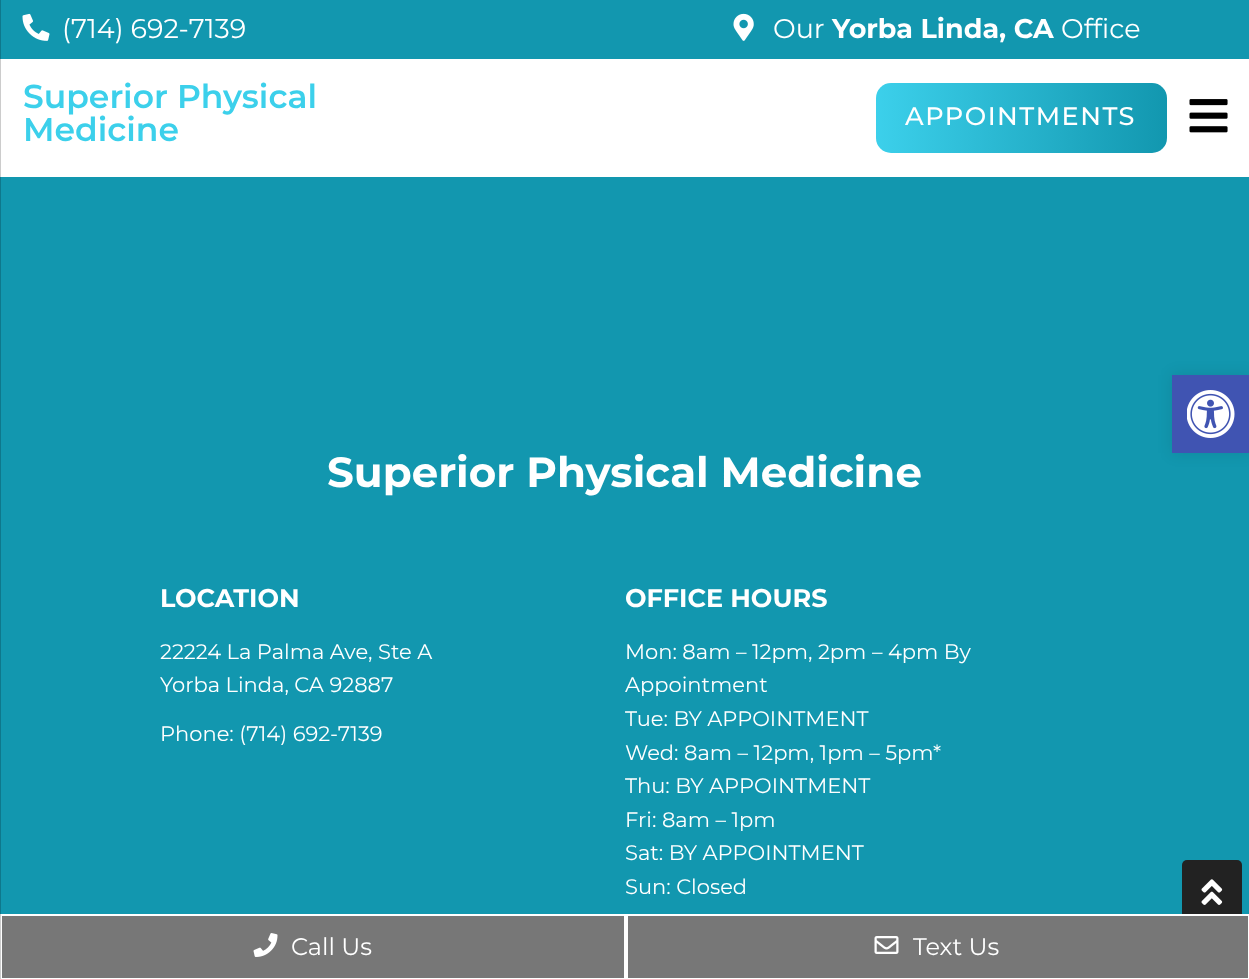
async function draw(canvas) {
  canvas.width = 1249
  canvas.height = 979
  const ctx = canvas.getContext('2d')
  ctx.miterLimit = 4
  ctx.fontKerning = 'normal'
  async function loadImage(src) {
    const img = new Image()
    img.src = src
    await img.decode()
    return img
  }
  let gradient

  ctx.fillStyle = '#1297af'
  ctx.fillRect(0, 0, 1249, 979)
  ctx.drawImage(await loadImage('image0.png'), 22, 13, 28, 28)
  ctx.font = '27px Montserrat'
  ctx.fillStyle = '#fff'
  ctx.fillText('(714) 692-7139', 62, 38)
  ctx.drawImage(await loadImage('image1.png'), 733, 13, 21, 28)
  ctx.fillText('Our', 773, 38)
  ctx.font = 'bold 27px Montserrat'
  ctx.fillText('Yorba Linda, CA', 832, 38)
  ctx.font = '27px Montserrat'
  ctx.fillText('Office', 1061, 38)
  ctx.fillRect(0, 59, 1249, 118)
  ctx.fillStyle = '#777'
  ctx.beginPath()
  ctx.rect(1, 915, 624, 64)
  ctx.fill()
  ctx.strokeStyle = '#fff'
  ctx.lineWidth = 2
  ctx.stroke()
  ctx.fillStyle = '#00000033'
  ctx.fillRect(0, 0, 1, 979)
  ctx.font = '600 33px Montserrat'
  ctx.fillStyle = '#3cd0eb'
  ctx.fillText('Superior Physical', 23, 108)
  ctx.fillText('Medicine', 23, 141)
  gradient = ctx.createLinearGradient(876, 118, 1167, 118)
  gradient.addColorStop(0, '#3cd0eb')
  gradient.addColorStop(1, '#1297af')
  ctx.fillStyle = gradient
  ctx.beginPath()
  ctx.roundRect(876, 83, 291, 70, 15)
  ctx.fill()
  ctx.letterSpacing = '1.5px'
  ctx.font = '500 25.5px Montserrat'
  ctx.fillStyle = '#fff'
  ctx.fillText('APPOINTMENTS', 905, 125)
  ctx.drawImage(await loadImage('image2.png'), 1189, 99, 39, 34)
  ctx.letterSpacing = '0px'
  ctx.font = 'bold 42px Montserrat'
  ctx.fillText('Superior Physical Medicine', 327, 487)
  ctx.font = 'bold 25.5px Montserrat'
  ctx.fillText('LOCATION', 160, 607)
  ctx.font = '21px Montserrat'
  ctx.fillText('22224 La Palma Ave, Ste A', 160, 659)
  ctx.fillText('Yorba Linda, CA 92887', 160, 692)
  ctx.fillText('Phone: (714) 692-7139', 160, 741)
  ctx.font = 'bold 25.5px Montserrat'
  ctx.fillText('OFFICE HOURS', 625, 607)
  ctx.font = '21px Montserrat'
  ctx.fillText('Mon: 8am – 12pm, 2pm – 4pm By', 625, 659)
  ctx.fillText('Appointment', 625, 692)
  ctx.fillText('Tue: BY APPOINTMENT', 625, 726)
  ctx.fillText('Wed: 8am – 12pm, 1pm – 5pm*', 625, 760)
  ctx.fillText('Thu: BY APPOINTMENT', 625, 793)
  ctx.fillText('Fri: 8am – 1pm', 625, 827)
  ctx.fillText('Sat: BY APPOINTMENT', 625, 860)
  ctx.fillText('Sun: Closed', 625, 894)
  ctx.fillStyle = '#0000001a'
  ctx.filter = 'blur(7.5px)'
  ctx.beginPath()
  ctx.rect(1172, 375, 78, 78)
  ctx.fill()
  ctx.filter = 'none'
  ctx.fillStyle = '#4054b2'
  ctx.fillRect(1172, 375, 77, 78)
  ctx.drawImage(await loadImage('image3.png'), 1187, 390, 48, 48)
  ctx.fillStyle = '#222'
  ctx.beginPath()
  ctx.roundRect(1182, 860, 60, 60, 5)
  ctx.fill()
  ctx.drawImage(await loadImage('image4.png'), 1201, 879, 22, 26)
  ctx.drawImage(await loadImage('image5.png'), 253, 933, 25, 24)
  ctx.font = '24px Montserrat'
  ctx.fillStyle = '#fff'
  ctx.fillText('Call Us', 291, 955)
  ctx.fillStyle = '#777'
  ctx.beginPath()
  ctx.rect(627, 915, 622, 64)
  ctx.fill()
  ctx.stroke()
  ctx.drawImage(await loadImage('image6.png'), 874, 936, 25, 18)
  ctx.fillStyle = '#fff'
  ctx.fillText('Text Us', 913, 955)
}

draw(document.querySelector('canvas'))
